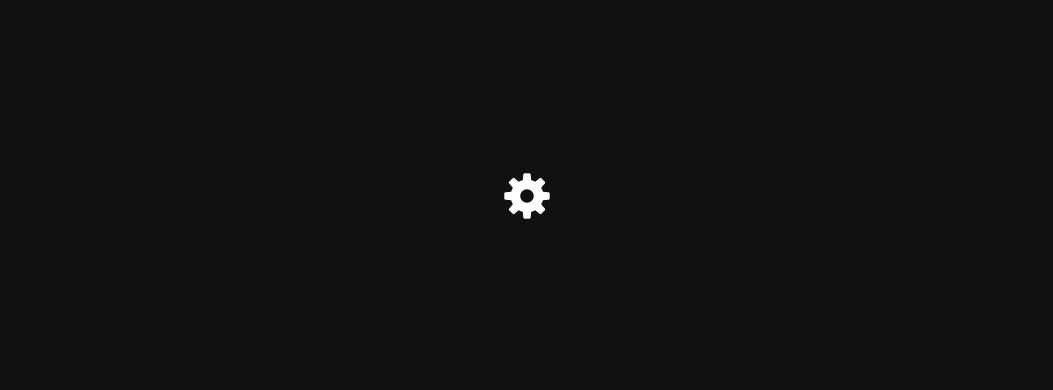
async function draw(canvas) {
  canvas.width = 1053
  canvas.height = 390
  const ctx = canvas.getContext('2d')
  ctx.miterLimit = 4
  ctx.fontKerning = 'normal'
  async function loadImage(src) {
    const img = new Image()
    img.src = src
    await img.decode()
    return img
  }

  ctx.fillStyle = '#111'
  ctx.fillRect(0, 0, 1053, 390)
  ctx.drawImage(await loadImage('image0.png'), 504, 173, 46, 46)
}

draw(document.querySelector('canvas'))
